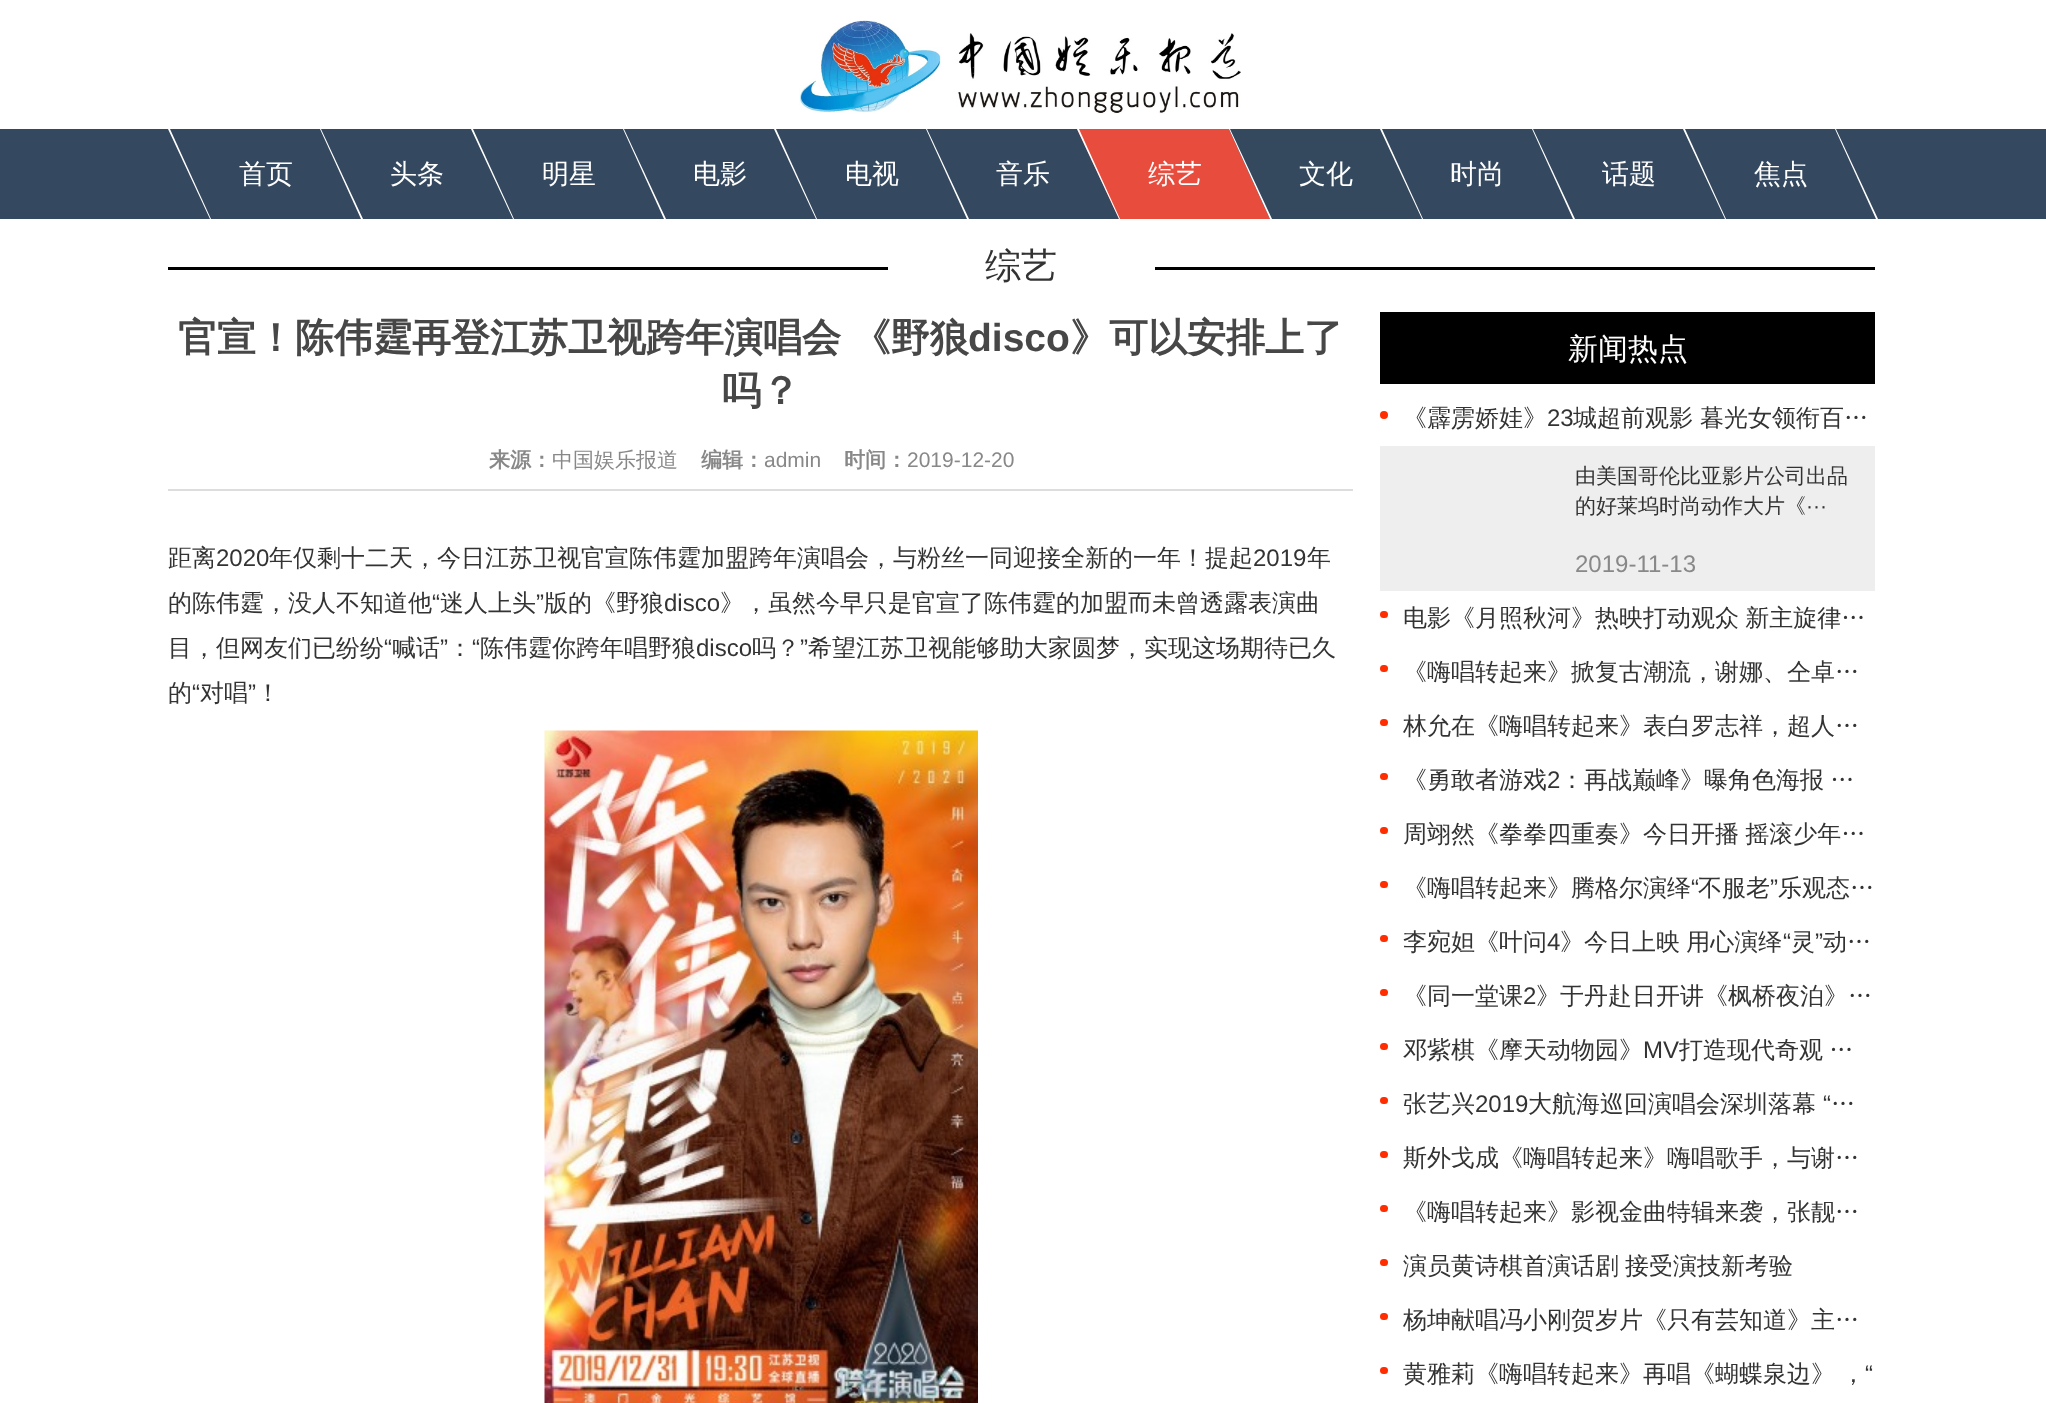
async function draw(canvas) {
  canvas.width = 2046
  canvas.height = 1403
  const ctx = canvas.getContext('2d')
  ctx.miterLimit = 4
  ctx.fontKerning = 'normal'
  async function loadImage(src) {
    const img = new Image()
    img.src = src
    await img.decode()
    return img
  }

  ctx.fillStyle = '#fff'
  ctx.fillRect(0, 0, 2046, 1403)
  ctx.drawImage(await loadImage('image0.png'), 799, 20, 442, 94)
  ctx.fillStyle = '#34485f'
  ctx.fillRect(0, 129, 2046, 90)
  ctx.fillStyle = '#fff'
  ctx.beginPath()
  ctx.moveTo(168, 129)
  ctx.lineTo(170, 129)
  ctx.lineTo(211, 219)
  ctx.lineTo(210, 219)
  ctx.closePath()
  ctx.fill()
  ctx.font = '500 27px WenQuanYi Zen Hei'
  ctx.fillText('首页', 239, 183)
  ctx.beginPath()
  ctx.moveTo(320, 129)
  ctx.lineTo(321, 129)
  ctx.lineTo(363, 219)
  ctx.lineTo(361, 219)
  ctx.closePath()
  ctx.fill()
  ctx.fillText('头条', 390, 183)
  ctx.beginPath()
  ctx.moveTo(471, 129)
  ctx.lineTo(473, 129)
  ctx.lineTo(514, 219)
  ctx.lineTo(513, 219)
  ctx.closePath()
  ctx.fill()
  ctx.fillText('明星', 542, 183)
  ctx.beginPath()
  ctx.moveTo(623, 129)
  ctx.lineTo(624, 129)
  ctx.lineTo(666, 219)
  ctx.lineTo(664, 219)
  ctx.closePath()
  ctx.fill()
  ctx.fillText('电影', 693, 183)
  ctx.beginPath()
  ctx.moveTo(774, 129)
  ctx.lineTo(776, 129)
  ctx.lineTo(817, 219)
  ctx.lineTo(816, 219)
  ctx.closePath()
  ctx.fill()
  ctx.fillText('电视', 845, 183)
  ctx.beginPath()
  ctx.moveTo(926, 129)
  ctx.lineTo(927, 129)
  ctx.lineTo(969, 219)
  ctx.lineTo(967, 219)
  ctx.closePath()
  ctx.fill()
  ctx.fillText('音乐', 996, 183)
  ctx.fillStyle = '#e74c3c'
  ctx.beginPath()
  ctx.moveTo(1077, 129)
  ctx.lineTo(1229, 129)
  ctx.lineTo(1270, 219)
  ctx.lineTo(1119, 219)
  ctx.closePath()
  ctx.fill()
  ctx.fillStyle = '#fff'
  ctx.beginPath()
  ctx.moveTo(1077, 129)
  ctx.lineTo(1079, 129)
  ctx.lineTo(1120, 219)
  ctx.lineTo(1119, 219)
  ctx.closePath()
  ctx.fill()
  ctx.fillText('综艺', 1148, 183)
  ctx.fillStyle = '#34495e'
  ctx.beginPath()
  ctx.moveTo(1229, 129)
  ctx.lineTo(1380, 129)
  ctx.lineTo(1422, 219)
  ctx.lineTo(1270, 219)
  ctx.closePath()
  ctx.fill()
  ctx.fillStyle = '#fff'
  ctx.beginPath()
  ctx.moveTo(1229, 129)
  ctx.lineTo(1230, 129)
  ctx.lineTo(1272, 219)
  ctx.lineTo(1270, 219)
  ctx.closePath()
  ctx.fill()
  ctx.fillText('文化', 1299, 183)
  ctx.beginPath()
  ctx.moveTo(1380, 129)
  ctx.lineTo(1382, 129)
  ctx.lineTo(1423, 219)
  ctx.lineTo(1422, 219)
  ctx.closePath()
  ctx.fill()
  ctx.fillText('时尚', 1450, 183)
  ctx.beginPath()
  ctx.moveTo(1532, 129)
  ctx.lineTo(1533, 129)
  ctx.lineTo(1575, 219)
  ctx.lineTo(1573, 219)
  ctx.closePath()
  ctx.fill()
  ctx.fillText('话题', 1602, 183)
  ctx.beginPath()
  ctx.moveTo(1835, 129)
  ctx.lineTo(1836, 129)
  ctx.lineTo(1878, 219)
  ctx.lineTo(1876, 219)
  ctx.closePath()
  ctx.fill()
  ctx.beginPath()
  ctx.moveTo(1683, 129)
  ctx.lineTo(1685, 129)
  ctx.lineTo(1726, 219)
  ctx.lineTo(1725, 219)
  ctx.closePath()
  ctx.fill()
  ctx.fillText('焦点', 1754, 183)
  ctx.fillStyle = '#000'
  ctx.fillRect(168, 267, 720, 3)
  ctx.font = '500 36px WenQuanYi Zen Hei'
  ctx.fillStyle = '#333'
  ctx.fillText('综艺', 985, 278)
  ctx.fillStyle = '#000'
  ctx.fillRect(1155, 267, 720, 3)
  ctx.wordSpacing = '-1px'
  ctx.font = 'bold 39px WenQuanYi Zen Hei'
  ctx.fillStyle = '#474747'
  ctx.fillText('官宣！陈伟霆再登江苏卫视跨年演唱会 《野狼', 178, 351)
  ctx.wordSpacing = '0px'
  ctx.font = 'bold 39px Liberation Sans'
  ctx.fillText('disco', 968, 351)
  ctx.font = 'bold 39px WenQuanYi Zen Hei'
  ctx.fillText('》可以安排上了', 1070, 351)
  ctx.fillText('吗？', 722, 404)
  ctx.fillStyle = '#ddd'
  ctx.fillRect(168, 489, 1185, 2)
  ctx.font = 'bold 21px WenQuanYi Zen Hei'
  ctx.fillStyle = '#888'
  ctx.fillText('来源：', 489, 467)
  ctx.font = '500 21px WenQuanYi Zen Hei'
  ctx.fillText('中国娱乐报道', 552, 467)
  ctx.font = 'bold 21px WenQuanYi Zen Hei'
  ctx.fillText('编辑：', 701, 467)
  ctx.font = '21px Liberation Sans'
  ctx.fillText('admin', 764, 467)
  ctx.font = 'bold 21px WenQuanYi Zen Hei'
  ctx.fillText('时间：', 844, 467)
  ctx.font = '21px Liberation Sans'
  ctx.fillText('2019-12-20', 907, 467)
  ctx.font = '500 24px WenQuanYi Zen Hei'
  ctx.fillStyle = '#333'
  ctx.fillText('距离', 168, 566)
  ctx.font = '24px Liberation Sans'
  ctx.fillText('2020', 216, 566)
  ctx.font = '500 24px WenQuanYi Zen Hei'
  ctx.fillText('年仅剩十二天，今日江苏卫视官宣陈伟霆加盟跨年演唱会，与粉丝一同迎接全新的一年！提起', 269, 566)
  ctx.font = '24px Liberation Sans'
  ctx.fillText('2019', 1253, 566)
  ctx.font = '500 24px WenQuanYi Zen Hei'
  ctx.fillText('年', 1307, 566)
  ctx.fillText('的陈伟霆，没人不知道他', 168, 611)
  ctx.font = '24px Liberation Sans'
  ctx.fillText('“', 432, 611)
  ctx.font = '500 24px WenQuanYi Zen Hei'
  ctx.fillText('迷人上头', 440, 611)
  ctx.font = '24px Liberation Sans'
  ctx.fillText('”', 536, 611)
  ctx.font = '500 24px WenQuanYi Zen Hei'
  ctx.fillText('版的《野狼', 544, 611)
  ctx.font = '24px Liberation Sans'
  ctx.fillText('disco', 664, 611)
  ctx.font = '500 24px WenQuanYi Zen Hei'
  ctx.fillText('》，虽然今早只是官宣了陈伟霆的加盟而未曾透露表演曲', 720, 611)
  ctx.fillText('目，但网友们已纷纷', 168, 656)
  ctx.font = '24px Liberation Sans'
  ctx.fillText('“', 384, 656)
  ctx.font = '500 24px WenQuanYi Zen Hei'
  ctx.fillText('喊话', 392, 656)
  ctx.font = '24px Liberation Sans'
  ctx.fillText('”', 440, 656)
  ctx.fillText('“', 472, 656)
  ctx.font = '500 24px WenQuanYi Zen Hei'
  ctx.fillText('陈伟霆你跨年唱野狼', 480, 656)
  ctx.font = '24px Liberation Sans'
  ctx.fillText('disco', 696, 656)
  ctx.font = '500 24px WenQuanYi Zen Hei'
  ctx.fillText('吗？', 752, 656)
  ctx.font = '24px Liberation Sans'
  ctx.fillText('”', 800, 656)
  ctx.font = '500 24px WenQuanYi Zen Hei'
  ctx.fillText('希望江苏卫视能够助大家圆梦，实现这场期待已久', 808, 656)
  ctx.fillText('：', 448, 656)
  ctx.fillText('的', 168, 701)
  ctx.font = '24px Liberation Sans'
  ctx.fillText('“', 192, 701)
  ctx.font = '500 24px WenQuanYi Zen Hei'
  ctx.fillText('对唱', 200, 701)
  ctx.font = '24px Liberation Sans'
  ctx.fillText('”', 248, 701)
  ctx.font = '500 24px WenQuanYi Zen Hei'
  ctx.fillText('！', 256, 701)
  ctx.drawImage(await loadImage('image1.png'), 544, 730, 434, 673)
  ctx.fillStyle = '#000'
  ctx.fillRect(1380, 312, 495, 72)
  ctx.font = '500 30px WenQuanYi Zen Hei'
  ctx.fillStyle = '#fff'
  ctx.fillText('新闻热点', 1568, 359)
  ctx.fillStyle = '#ff2d00'
  ctx.beginPath()
  ctx.arc(1384, 415, 4, 0, 2 * Math.PI)
  ctx.fill()
  ctx.font = '500 24px WenQuanYi Zen Hei'
  ctx.fillStyle = '#333'
  ctx.fillText('《霹雳娇娃》', 1403, 426)
  ctx.font = '24px Liberation Sans'
  ctx.fillText('23', 1547, 426)
  ctx.font = '500 24px WenQuanYi Zen Hei'
  ctx.fillText('城超前观影', 1573, 426)
  ctx.fillText('暮光女领衔百…', 1700, 426)
  ctx.fillStyle = '#eee'
  ctx.fillRect(1380, 446, 495, 145)
  ctx.font = '500 21px WenQuanYi Zen Hei'
  ctx.fillStyle = '#333'
  ctx.fillText('由美国哥伦比亚影片公司出品', 1575, 483)
  ctx.fillText('的好莱坞时尚动作大片《', 1575, 513)
  ctx.font = '21px Liberation Sans'
  ctx.fillText('···', 1806, 513)
  ctx.font = '24px Liberation Sans'
  ctx.fillStyle = '#888'
  ctx.fillText('2019-11-13', 1575, 572)
  ctx.fillStyle = '#ff2d00'
  ctx.beginPath()
  ctx.roundRect(1380, 611, 8, 7, 3.5)
  ctx.fill()
  ctx.wordSpacing = '-1px'
  ctx.font = '500 24px WenQuanYi Zen Hei'
  ctx.fillStyle = '#333'
  ctx.fillText('电影《月照秋河》热映打动观众 新主旋律…', 1403, 626)
  ctx.fillStyle = '#ff2d00'
  ctx.beginPath()
  ctx.roundRect(1380, 665, 8, 7, 3.5)
  ctx.fill()
  ctx.wordSpacing = '0px'
  ctx.fillStyle = '#333'
  ctx.fillText('《嗨唱转起来》掀复古潮流，谢娜、仝卓…', 1403, 680)
  ctx.fillStyle = '#ff2d00'
  ctx.beginPath()
  ctx.roundRect(1380, 719, 8, 7, 3.5)
  ctx.fill()
  ctx.fillStyle = '#333'
  ctx.fillText('林允在《嗨唱转起来》表白罗志祥，超人…', 1403, 734)
  ctx.fillStyle = '#ff2d00'
  ctx.beginPath()
  ctx.roundRect(1380, 773, 8, 7, 3.5)
  ctx.fill()
  ctx.fillStyle = '#333'
  ctx.fillText('《勇敢者游戏', 1403, 788)
  ctx.font = '24px Liberation Sans'
  ctx.fillText('2', 1547, 788)
  ctx.wordSpacing = '-1px'
  ctx.font = '500 24px WenQuanYi Zen Hei'
  ctx.fillText('：再战巅峰》曝角色海报 …', 1560, 788)
  ctx.fillStyle = '#ff2d00'
  ctx.beginPath()
  ctx.roundRect(1380, 827, 8, 7, 3.5)
  ctx.fill()
  ctx.fillStyle = '#333'
  ctx.fillText('周翊然《拳拳四重奏》今日开播 摇滚少年…', 1403, 842)
  ctx.fillStyle = '#ff2d00'
  ctx.beginPath()
  ctx.roundRect(1380, 881, 8, 7, 3.5)
  ctx.fill()
  ctx.wordSpacing = '0px'
  ctx.fillStyle = '#333'
  ctx.fillText('《嗨唱转起来》腾格尔演绎', 1403, 896)
  ctx.font = '24px Liberation Sans'
  ctx.fillText('“', 1691, 896)
  ctx.font = '500 24px WenQuanYi Zen Hei'
  ctx.fillText('不服老', 1698, 896)
  ctx.font = '24px Liberation Sans'
  ctx.fillText('”', 1770, 896)
  ctx.font = '500 24px WenQuanYi Zen Hei'
  ctx.fillText('乐观态…', 1778, 896)
  ctx.fillStyle = '#ff2d00'
  ctx.beginPath()
  ctx.roundRect(1380, 935, 8, 7, 3.5)
  ctx.fill()
  ctx.fillStyle = '#333'
  ctx.fillText('李宛妲《叶问', 1403, 950)
  ctx.font = '24px Liberation Sans'
  ctx.fillText('4', 1547, 950)
  ctx.wordSpacing = '-1px'
  ctx.font = '500 24px WenQuanYi Zen Hei'
  ctx.fillText('》今日上映 用心演绎', 1560, 950)
  ctx.wordSpacing = '0px'
  ctx.font = '24px Liberation Sans'
  ctx.fillText('“', 1783, 950)
  ctx.font = '500 24px WenQuanYi Zen Hei'
  ctx.fillText('灵', 1791, 950)
  ctx.font = '24px Liberation Sans'
  ctx.fillText('”', 1815, 950)
  ctx.font = '500 24px WenQuanYi Zen Hei'
  ctx.fillText('动…', 1823, 950)
  ctx.fillStyle = '#ff2d00'
  ctx.beginPath()
  ctx.roundRect(1380, 989, 8, 7, 3.5)
  ctx.fill()
  ctx.fillStyle = '#333'
  ctx.fillText('《同一堂课', 1403, 1004)
  ctx.font = '24px Liberation Sans'
  ctx.fillText('2', 1523, 1004)
  ctx.font = '500 24px WenQuanYi Zen Hei'
  ctx.fillText('》于丹赴日开讲《枫桥夜泊》…', 1536, 1004)
  ctx.fillStyle = '#ff2d00'
  ctx.beginPath()
  ctx.roundRect(1380, 1043, 8, 7, 3.5)
  ctx.fill()
  ctx.fillStyle = '#333'
  ctx.fillText('邓紫棋《摩天动物园》', 1403, 1058)
  ctx.font = '24px Liberation Sans'
  ctx.fillText('MV', 1643, 1058)
  ctx.wordSpacing = '-1px'
  ctx.font = '500 24px WenQuanYi Zen Hei'
  ctx.fillText('打造现代奇观 …', 1679, 1058)
  ctx.fillStyle = '#ff2d00'
  ctx.beginPath()
  ctx.roundRect(1380, 1097, 8, 7, 3.5)
  ctx.fill()
  ctx.wordSpacing = '0px'
  ctx.fillStyle = '#333'
  ctx.fillText('张艺兴', 1403, 1112)
  ctx.font = '24px Liberation Sans'
  ctx.fillText('2019', 1475, 1112)
  ctx.font = '500 24px WenQuanYi Zen Hei'
  ctx.fillText('大航海巡回演唱会深圳落幕', 1528, 1112)
  ctx.font = '24px Liberation Sans'
  ctx.fillText('“', 1823, 1112)
  ctx.font = '500 24px WenQuanYi Zen Hei'
  ctx.fillText('…', 1831, 1112)
  ctx.fillStyle = '#ff2d00'
  ctx.beginPath()
  ctx.roundRect(1380, 1151, 8, 7, 3.5)
  ctx.fill()
  ctx.fillStyle = '#333'
  ctx.fillText('斯外戈成《嗨唱转起来》嗨唱歌手，与谢…', 1403, 1166)
  ctx.fillStyle = '#ff2d00'
  ctx.beginPath()
  ctx.roundRect(1380, 1205, 8, 7, 3.5)
  ctx.fill()
  ctx.fillStyle = '#333'
  ctx.fillText('《嗨唱转起来》影视金曲特辑来袭，张靓…', 1403, 1220)
  ctx.fillStyle = '#ff2d00'
  ctx.beginPath()
  ctx.roundRect(1380, 1259, 8, 7, 3.5)
  ctx.fill()
  ctx.fillStyle = '#333'
  ctx.fillText('演员黄诗棋首演话剧', 1403, 1274)
  ctx.fillText('接受演技新考验', 1625, 1274)
  ctx.fillStyle = '#ff2d00'
  ctx.beginPath()
  ctx.roundRect(1380, 1313, 8, 7, 3.5)
  ctx.fill()
  ctx.fillStyle = '#333'
  ctx.fillText('杨坤献唱冯小刚贺岁片《只有芸知道》主…', 1403, 1328)
  ctx.fillStyle = '#ff2d00'
  ctx.beginPath()
  ctx.roundRect(1380, 1367, 8, 7, 3.5)
  ctx.fill()
  ctx.wordSpacing = '-1px'
  ctx.fillStyle = '#333'
  ctx.fillText('黄雅莉《嗨唱转起来》再唱《蝴蝶泉边》 ，', 1403, 1382)
  ctx.wordSpacing = '0px'
  ctx.font = '24px Liberation Sans'
  ctx.fillText('“', 1865, 1382)
}

draw(document.querySelector('canvas'))
